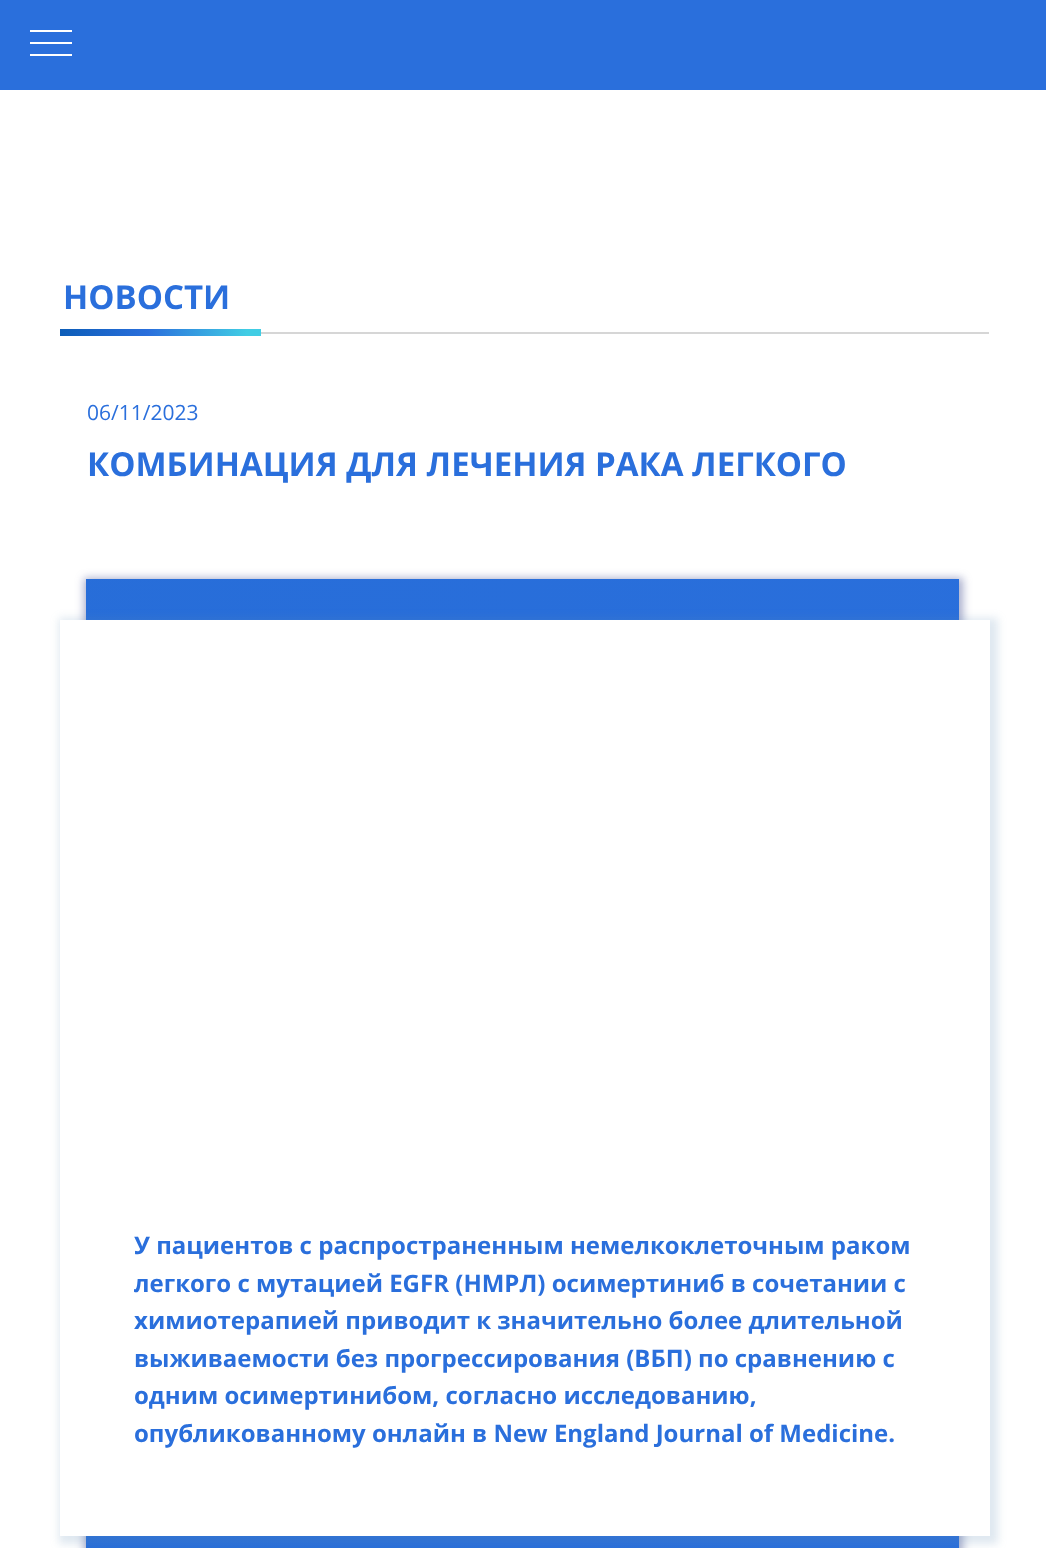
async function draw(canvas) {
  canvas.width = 1046
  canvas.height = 1548
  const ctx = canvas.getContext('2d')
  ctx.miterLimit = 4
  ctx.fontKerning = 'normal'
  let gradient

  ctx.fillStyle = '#fff'
  ctx.fillRect(0, 0, 1046, 1548)
  ctx.fillStyle = '#2a6fdc'
  ctx.fillRect(0, 0, 1046, 90)
  ctx.fillStyle = '#fff'
  ctx.fillRect(30, 30, 42, 2)
  ctx.fillRect(30, 42, 42, 2)
  ctx.fillRect(30, 54, 42, 2)
  ctx.font = 'bold 33px Open Sans'
  ctx.fillStyle = '#2a6fdc'
  ctx.fillText('НОВОСТИ', 63, 309)
  gradient = ctx.createLinearGradient(22, 332, 264, 332)
  gradient.addColorStop(0.14, '#0b5cb6')
  gradient.addColorStop(0.52, '#2a6fdc')
  gradient.addColorStop(0.93, '#41cde4')
  ctx.fillStyle = gradient
  ctx.fillRect(60, 329, 201, 7)
  ctx.fillStyle = '#d6d6d6'
  ctx.fillRect(261, 332, 728, 2)
  ctx.font = '21px Open Sans'
  ctx.fillStyle = '#2a6fdc'
  ctx.fillText('06/11/2023', 87, 420)
  ctx.font = 'bold 33px Open Sans'
  ctx.fillText('КОМБИНАЦИЯ ДЛЯ ЛЕЧЕНИЯ РАКА ЛЕГКОГО', 87, 476)
  ctx.fillStyle = '#27358266'
  ctx.filter = 'blur(4px)'
  ctx.beginPath()
  ctx.rect(84, 578, 879, 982)
  ctx.fill()
  ctx.filter = 'none'
  gradient = ctx.createLinearGradient(-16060, 1091, 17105, 1091)
  gradient.addColorStop(0.14, '#0b5cb6')
  gradient.addColorStop(0.52, '#2a6fdc')
  gradient.addColorStop(0.93, '#41cde4')
  ctx.fillStyle = gradient
  ctx.fillRect(86, 579, 873, 969)
  ctx.fillStyle = '#5d8cb333'
  ctx.filter = 'blur(4px)'
  ctx.beginPath()
  ctx.rect(59, 618, 939, 926)
  ctx.fill()
  ctx.filter = 'none'
  ctx.fillStyle = '#fff'
  ctx.fillRect(60, 620, 930, 916)
  ctx.font = 'bold 24px Open Sans'
  ctx.fillStyle = '#2a6fdc'
  ctx.fillText('У пациентов с распространенным немелкоклеточным раком', 134, 1254)
  ctx.fillText('легкого с мутацией EGFR (НМРЛ) осимертиниб в сочетании с', 134, 1292)
  ctx.fillText('химиотерапией приводит к значительно более длительной', 134, 1329)
  ctx.fillText('выживаемости без прогрессирования (ВБП) по сравнению с', 134, 1367)
  ctx.fillText('одним осимертинибом, согласно исследованию,', 134, 1404)
  ctx.fillText('опубликованному онлайн в New England Journal of Medicine.', 134, 1442)
}

draw(document.querySelector('canvas'))
